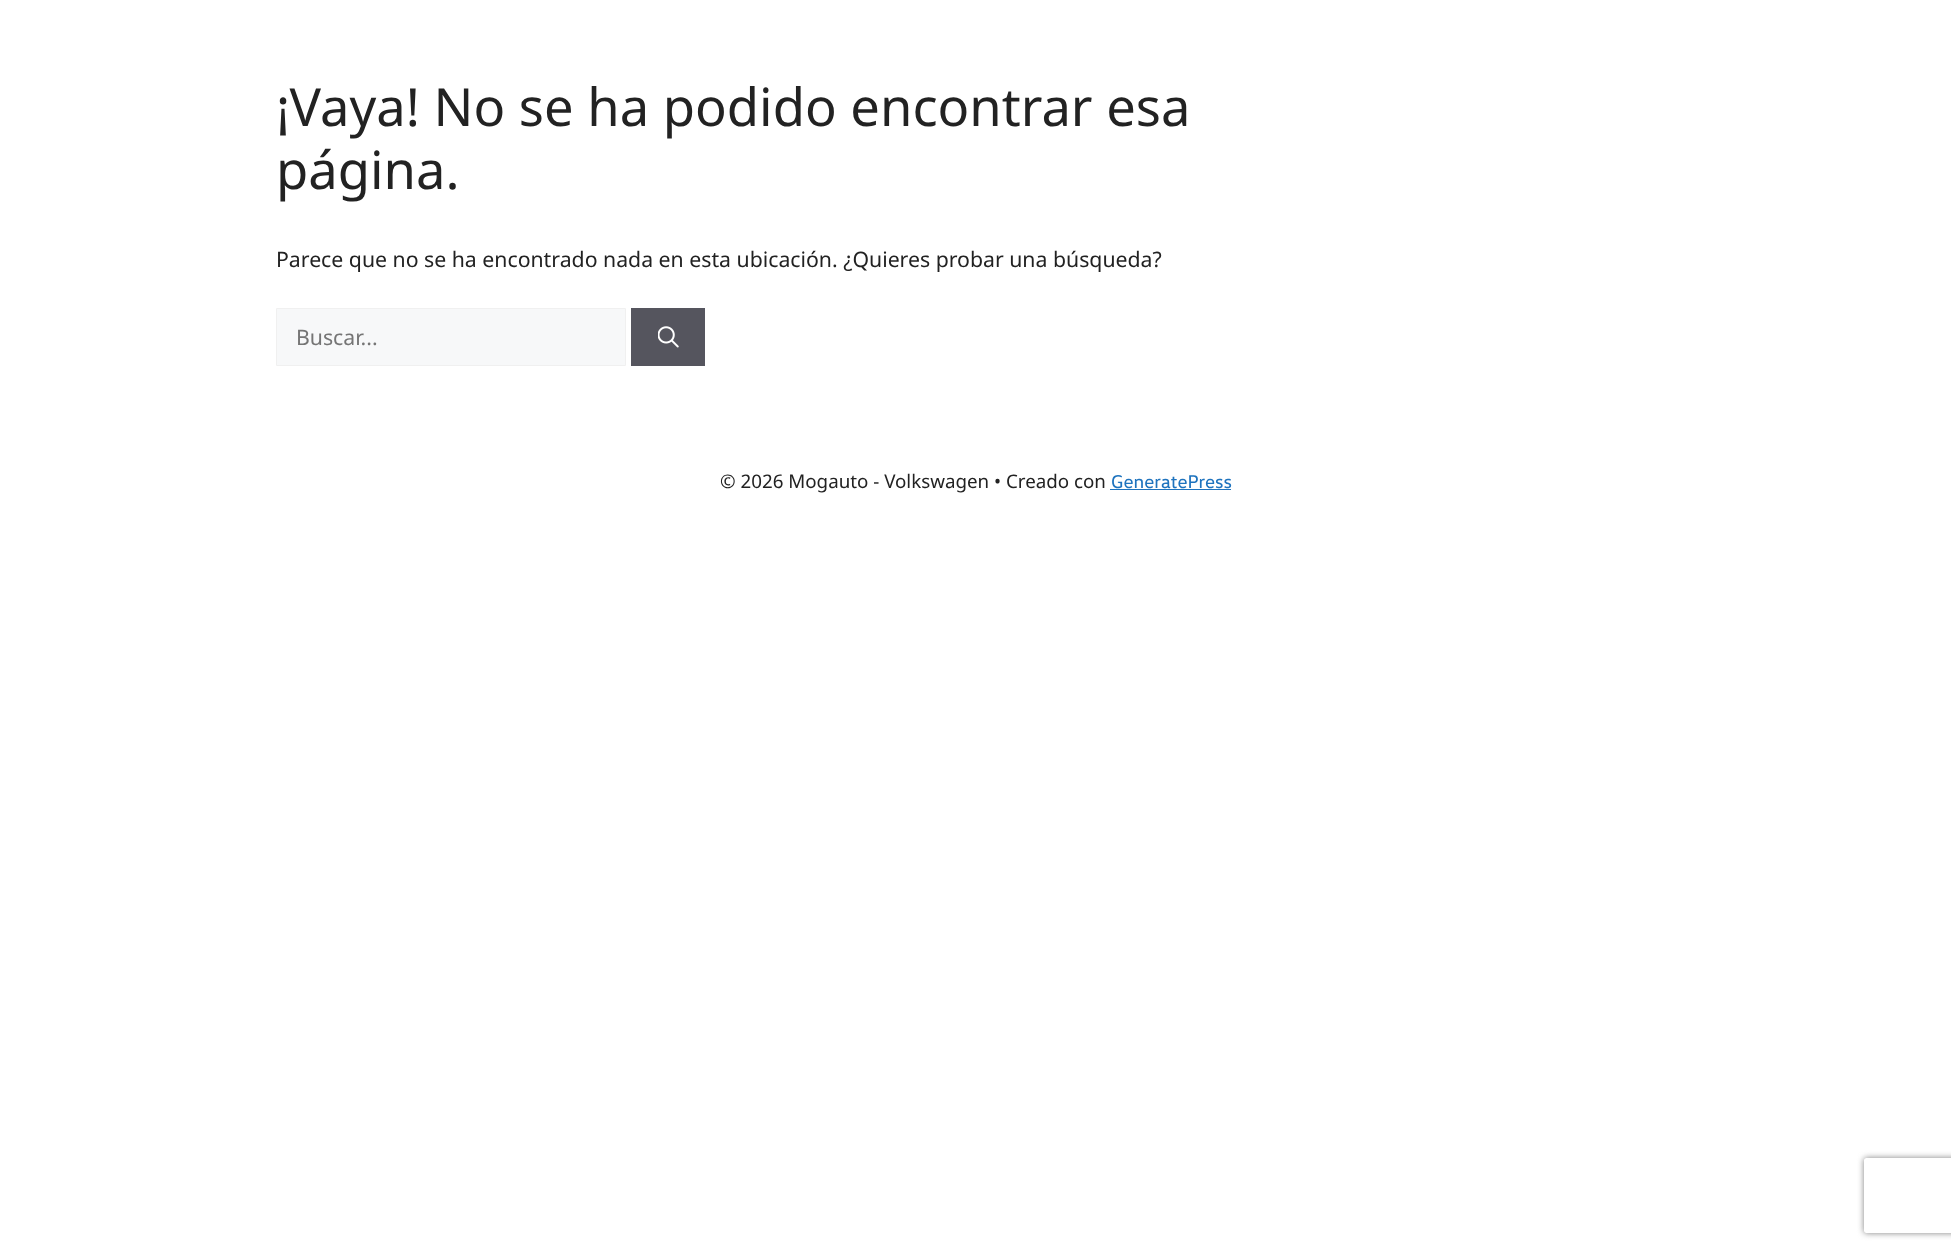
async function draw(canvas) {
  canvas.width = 1951
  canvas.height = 1250
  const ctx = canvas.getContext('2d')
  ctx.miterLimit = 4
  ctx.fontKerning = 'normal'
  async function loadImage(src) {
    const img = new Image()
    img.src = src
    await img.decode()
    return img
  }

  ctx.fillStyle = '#fff'
  ctx.fillRect(0, 0, 1951, 1250)
  ctx.font = '52.5px Noto Sans'
  ctx.fillStyle = '#222'
  ctx.fillText('¡Vaya! No se ha podido encontrar esa', 276, 126)
  ctx.fillText('página.', 276, 189)
  ctx.font = '21.25px Noto Sans'
  ctx.fillText('Parece que no se ha encontrado nada en esta ubicación. ¿Quieres probar una búsqueda?', 276, 267)
  ctx.fillStyle = '#f7f8f9'
  ctx.beginPath()
  ctx.rect(276.5, 308.5, 349, 57)
  ctx.fill()
  ctx.strokeStyle = '#f0f0f0'
  ctx.stroke()
  ctx.fillStyle = '#757575'
  ctx.fillText('Buscar...', 296, 345)
  ctx.fillStyle = '#55555e'
  ctx.fillRect(631, 308, 74, 58)
  ctx.drawImage(await loadImage('image0.png'), 658, 326, 21, 22)
  ctx.font = '18.75px Noto Sans'
  ctx.fillStyle = '#222'
  ctx.fillText('© 2026 Mogauto - Volkswagen • Creado con', 720, 488)
  ctx.font = '18.75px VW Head'
  ctx.fillStyle = '#1e73be'
  ctx.fillText('GeneratePress', 1111, 488)
  ctx.fillRect(1110, 489, 121, 1)
  ctx.save()
  ctx.beginPath()
  ctx.moveTo(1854, 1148)
  ctx.lineTo(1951, 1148)
  ctx.lineTo(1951, 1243)
  ctx.lineTo(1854, 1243)
  ctx.closePath()
  ctx.moveTo(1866.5, 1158)
  ctx.lineTo(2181.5, 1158)
  ctx.bezierCurveTo(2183, 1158, 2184, 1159, 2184, 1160.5)
  ctx.lineTo(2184, 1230.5)
  ctx.bezierCurveTo(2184, 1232, 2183, 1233, 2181.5, 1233)
  ctx.lineTo(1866.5, 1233)
  ctx.bezierCurveTo(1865, 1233, 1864, 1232, 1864, 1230.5)
  ctx.lineTo(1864, 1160.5)
  ctx.bezierCurveTo(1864, 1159, 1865, 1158, 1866.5, 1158)
  ctx.closePath()
  ctx.clip('evenodd')
  ctx.fillStyle = '#808080'
  ctx.filter = 'blur(3px)'
  ctx.beginPath()
  ctx.roundRect(1864, 1158, 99, 75, 2.5)
  ctx.fill()
  ctx.filter = 'none'
  ctx.restore()
}

draw(document.querySelector('canvas'))
